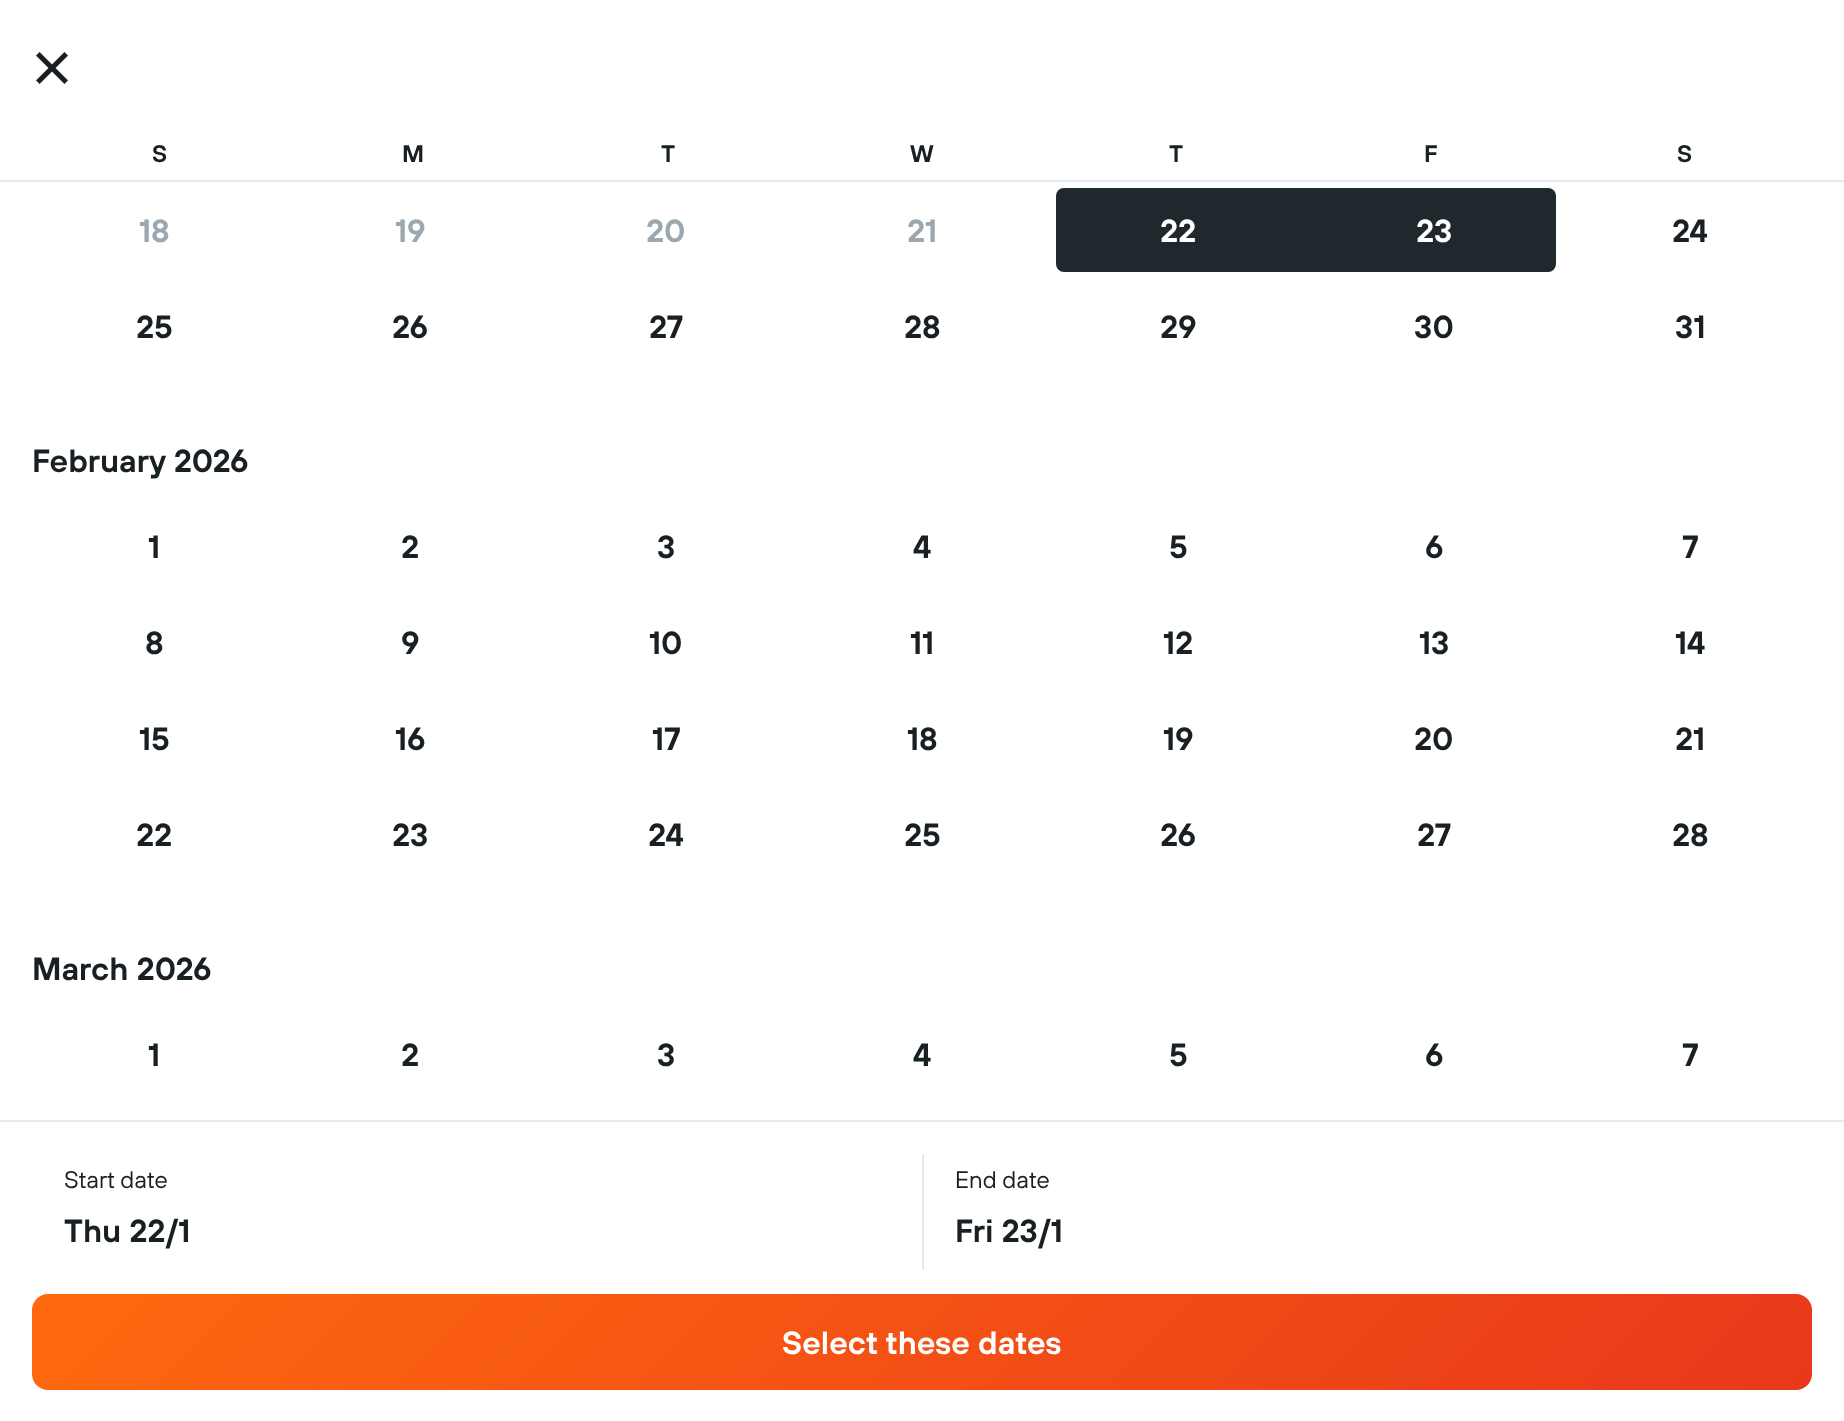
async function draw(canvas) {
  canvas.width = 1844
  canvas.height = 1421
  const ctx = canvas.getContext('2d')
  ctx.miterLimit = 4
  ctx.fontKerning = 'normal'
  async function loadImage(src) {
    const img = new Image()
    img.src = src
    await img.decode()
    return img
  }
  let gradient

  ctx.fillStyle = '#fff'
  ctx.fillRect(0, 0, 1844, 1421)
  ctx.drawImage(await loadImage('image0.png'), 36, 52, 32, 32)
  ctx.fillStyle = '#e6ebef'
  ctx.fillRect(0, 180, 1844, 2)
  ctx.font = '600 24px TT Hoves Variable'
  ctx.fillStyle = '#192024'
  ctx.fillText('S', 152, 162)
  ctx.fillText('M', 402, 162)
  ctx.fillText('T', 661, 162)
  ctx.fillText('W', 910, 162)
  ctx.fillText('T', 1169, 162)
  ctx.fillText('F', 1424, 162)
  ctx.fillText('S', 1677, 162)
  ctx.font = '600 32px TT Hoves Variable'
  ctx.fillStyle = '#9ba8b0'
  ctx.fillText('18', 139, 242)
  ctx.fillText('19', 395, 242)
  ctx.fillText('20', 646, 242)
  ctx.fillText('21', 907, 242)
  ctx.fillStyle = '#1f282d'
  ctx.beginPath()
  ctx.roundRect(1056, 188, 250, 84, [8, 0, 0, 8])
  ctx.fill()
  ctx.fillStyle = '#fff'
  ctx.fillText('22', 1160, 242)
  ctx.fillStyle = '#1f282d'
  ctx.beginPath()
  ctx.roundRect(1306, 188, 250, 84, [0, 8, 8, 0])
  ctx.fill()
  ctx.fillStyle = '#fff'
  ctx.fillText('23', 1416, 242)
  ctx.fillStyle = '#192024'
  ctx.fillText('24', 1672, 242)
  ctx.fillText('25', 136, 338)
  ctx.fillText('26', 392, 338)
  ctx.fillText('27', 649, 338)
  ctx.fillText('28', 904, 338)
  ctx.fillText('29', 1160, 338)
  ctx.fillText('30', 1414, 338)
  ctx.fillText('31', 1675, 338)
  ctx.fillText('February 2026', 32, 472)
  ctx.fillText('1', 148, 558)
  ctx.fillText('2', 401, 558)
  ctx.fillText('3', 657, 558)
  ctx.fillText('4', 913, 558)
  ctx.fillText('5', 1169, 558)
  ctx.fillText('6', 1425, 558)
  ctx.fillText('7', 1682, 558)
  ctx.fillText('8', 145, 654)
  ctx.fillText('9', 401, 654)
  ctx.fillText('10', 649, 654)
  ctx.fillText('11', 910, 654)
  ctx.fillText('12', 1163, 654)
  ctx.fillText('13', 1419, 654)
  ctx.fillText('14', 1675, 654)
  ctx.fillText('15', 139, 750)
  ctx.fillText('16', 395, 750)
  ctx.fillText('17', 652, 750)
  ctx.fillText('18', 907, 750)
  ctx.fillText('19', 1163, 750)
  ctx.fillText('20', 1414, 750)
  ctx.fillText('21', 1675, 750)
  ctx.fillText('22', 136, 846)
  ctx.fillText('23', 392, 846)
  ctx.fillText('24', 648, 846)
  ctx.fillText('25', 904, 846)
  ctx.fillText('26', 1160, 846)
  ctx.fillText('27', 1417, 846)
  ctx.fillText('28', 1672, 846)
  ctx.fillText('March 2026', 32, 980)
  ctx.fillText('1', 148, 1066)
  ctx.fillText('2', 401, 1066)
  ctx.fillText('3', 657, 1066)
  ctx.fillText('4', 913, 1066)
  ctx.fillText('5', 1169, 1066)
  ctx.fillText('6', 1425, 1066)
  ctx.fillText('7', 1682, 1066)
  ctx.fillStyle = '#e6ebef'
  ctx.fillRect(0, 1120, 1844, 2)
  ctx.fillRect(922, 1154, 2, 116)
  ctx.font = '24px TT Hoves Variable'
  ctx.fillStyle = '#192024'
  ctx.fillText('Start date', 64, 1188)
  ctx.font = '600 32px TT Hoves Variable'
  ctx.fillText('Thu 22/1', 64, 1242)
  ctx.font = '24px TT Hoves Variable'
  ctx.fillText('End date', 955, 1188)
  ctx.font = '600 32px TT Hoves Variable'
  ctx.fillText('Fri 23/1', 955, 1242)
  gradient = ctx.createLinearGradient(453, 873, 1391, 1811)
  gradient.addColorStop(0, '#ff690f')
  gradient.addColorStop(1, '#e8381b')
  ctx.fillStyle = gradient
  ctx.beginPath()
  ctx.roundRect(32, 1294, 1780, 96, 16)
  ctx.fill()
  ctx.fillStyle = '#fff'
  ctx.fillText('Select these dates', 782, 1354)
}

draw(document.querySelector('canvas'))
